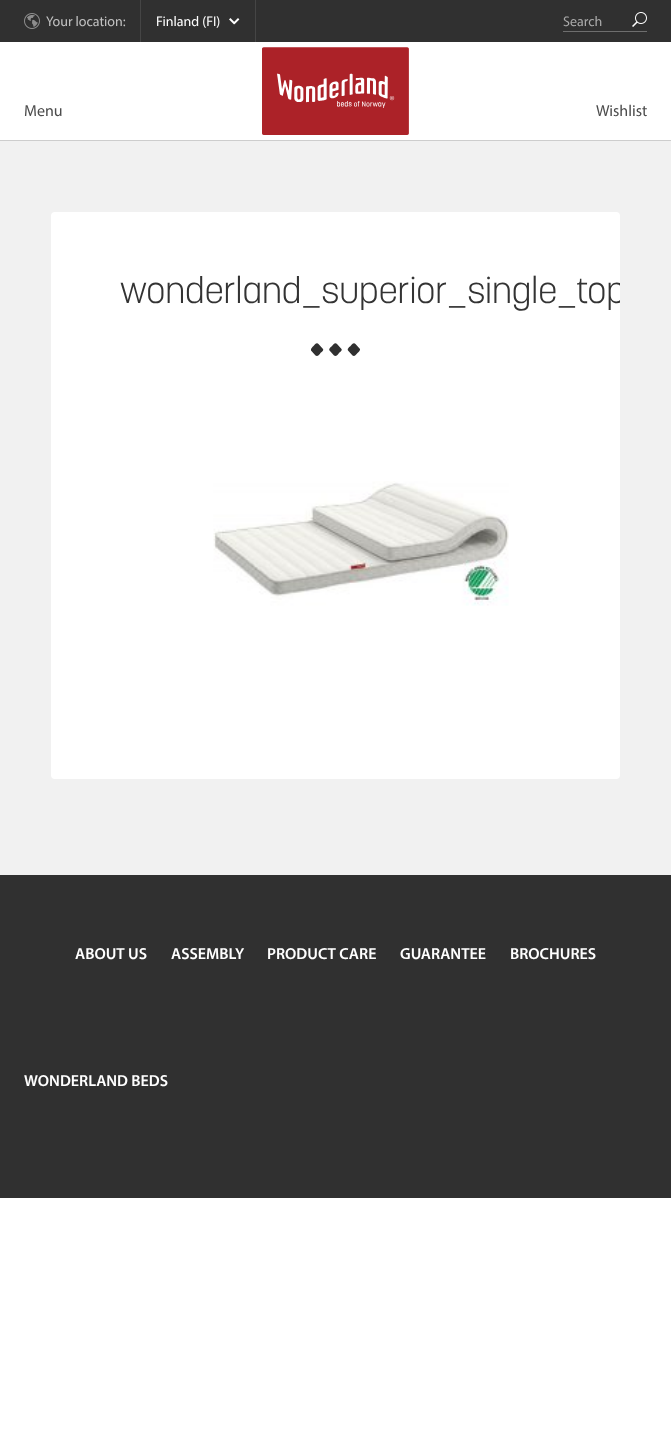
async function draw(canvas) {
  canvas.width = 671
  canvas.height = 1434
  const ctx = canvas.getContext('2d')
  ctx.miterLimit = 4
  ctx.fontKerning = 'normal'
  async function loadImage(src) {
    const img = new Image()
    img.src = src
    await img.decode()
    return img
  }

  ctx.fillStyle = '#fff'
  ctx.fillRect(0, 0, 671, 1434)
  ctx.fillStyle = '#303030'
  ctx.fillRect(0, 0, 671, 42)
  ctx.drawImage(await loadImage('image0.png'), 24, 13, 16, 16)
  ctx.font = '14px Myriad'
  ctx.fillStyle = '#c1c1c1'
  ctx.fillText('Your location:', 46, 26)
  ctx.fillStyle = '#454545'
  ctx.fillRect(140, 0, 1, 42)
  ctx.fillRect(255, 0, 1, 42)
  ctx.fillStyle = '#fff'
  ctx.fillText('Finland (FI)', 156, 26)
  ctx.drawImage(await loadImage('image1.png'), 229, 18, 11, 7)
  ctx.fillStyle = '#6e6e6e'
  ctx.fillRect(563, 31, 84, 1)
  ctx.fillStyle = '#aaa'
  ctx.fillText('Search', 563, 26)
  ctx.drawImage(await loadImage('image2.png'), 632, 12, 15, 15)
  ctx.fillStyle = '#f1f1f1'
  ctx.fillRect(0, 140, 671, 735)
  ctx.save()
  ctx.beginPath()
  ctx.rect(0, 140, 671, 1)
  ctx.clip()
  ctx.fillStyle = '#00000026'
  ctx.filter = 'blur(0.5px)'
  ctx.beginPath()
  ctx.rect(0, 43, 671, 98)
  ctx.fill()
  ctx.filter = 'none'
  ctx.restore()
  ctx.font = '16px Myriad'
  ctx.fillStyle = '#4c4c4c'
  ctx.fillText('Menu', 24, 116)
  ctx.drawImage(await loadImage('image3.png'), 262, 47, 147, 88)
  ctx.fillText('Wishlist', 596, 116)
  ctx.fillStyle = '#fff'
  ctx.beginPath()
  ctx.roundRect(51, 212, 569, 567, 4)
  ctx.fill()
  ctx.save()
  ctx.beginPath()
  ctx.roundRect(51, 212, 569, 567, 4)
  ctx.clip()
  ctx.font = '300 36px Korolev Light'
  ctx.fillStyle = '#333'
  ctx.fillText('wonderland_superior_single_top', 120, 303)
  ctx.restore()
  ctx.fillStyle = '#303030'
  ctx.beginPath()
  ctx.moveTo(337, 344)
  ctx.lineTo(341.5, 349)
  ctx.bezierCurveTo(342.5, 350.5, 340, 352, 339, 353)
  ctx.bezierCurveTo(338, 354.5, 336, 357, 334, 355.5)
  ctx.lineTo(329.5, 350.5)
  ctx.bezierCurveTo(328.5, 348.5, 331, 347, 332, 346)
  ctx.bezierCurveTo(333, 345, 335, 342, 337, 344)
  ctx.closePath()
  ctx.moveTo(355.5, 344)
  ctx.lineTo(360, 349)
  ctx.bezierCurveTo(360.5, 350.5, 358.5, 352, 357.5, 353)
  ctx.bezierCurveTo(356, 354.5, 354.5, 357, 352.5, 355.5)
  ctx.lineTo(348, 350.5)
  ctx.bezierCurveTo(347, 348.5, 349.5, 347, 350.5, 346)
  ctx.bezierCurveTo(351.5, 345, 353.5, 342, 355.5, 344)
  ctx.closePath()
  ctx.moveTo(318.5, 344)
  ctx.lineTo(323, 349)
  ctx.bezierCurveTo(324, 350.5, 321.5, 352, 320.5, 353)
  ctx.bezierCurveTo(319.5, 354.5, 317.5, 357, 315.5, 355.5)
  ctx.lineTo(311, 350.5)
  ctx.bezierCurveTo(310.5, 348.5, 312.5, 347, 313.5, 346)
  ctx.bezierCurveTo(314.5, 345, 316.5, 342, 318.5, 344)
  ctx.closePath()
  ctx.fill()
  ctx.drawImage(await loadImage('image4.png'), 213, 481, 296, 125)
  ctx.fillRect(0, 875, 671, 323)
  ctx.font = '600 16px Myriad'
  ctx.fillStyle = '#fff'
  ctx.fillText('ABOUT US', 75, 959)
  ctx.fillText('ASSEMBLY', 171, 959)
  ctx.fillText('PRODUCT CARE', 267, 959)
  ctx.fillText('GUARANTEE', 400, 959)
  ctx.fillText('BROCHURES', 510, 959)
  ctx.fillText('WONDERLAND BEDS', 24, 1086)
}

draw(document.querySelector('canvas'))
